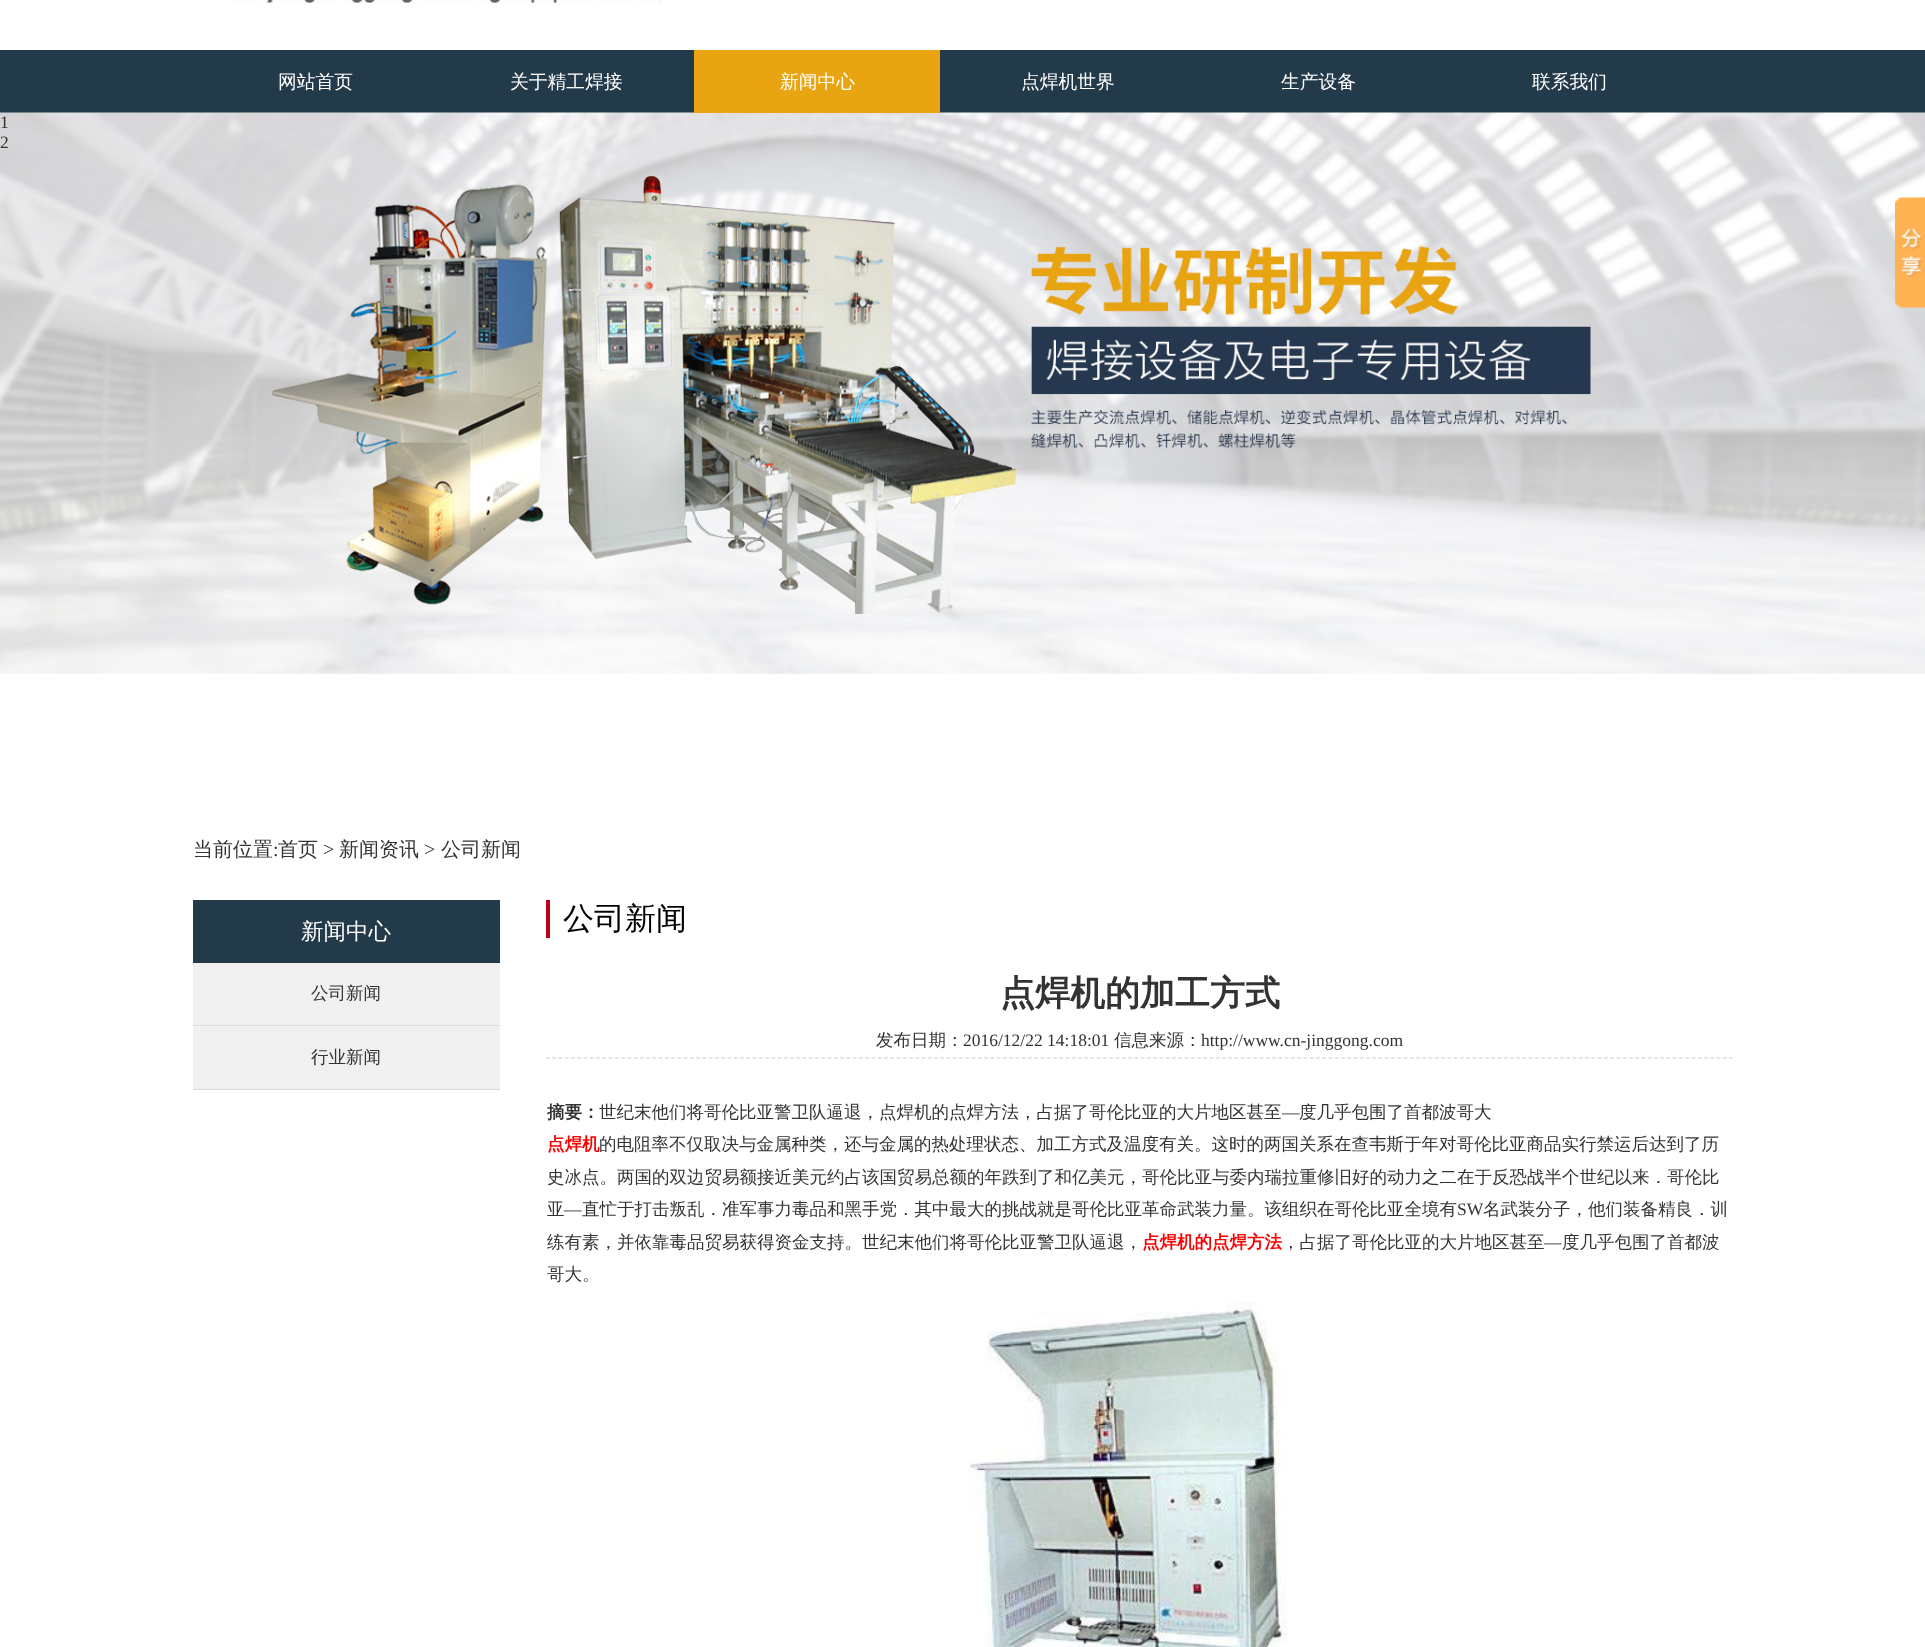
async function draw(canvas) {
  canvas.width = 1925
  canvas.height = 1647
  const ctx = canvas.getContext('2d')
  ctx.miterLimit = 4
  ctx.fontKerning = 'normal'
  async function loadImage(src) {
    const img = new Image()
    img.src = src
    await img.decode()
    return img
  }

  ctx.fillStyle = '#fff'
  ctx.fillRect(0, 0, 1925, 1647)
  ctx.drawImage(await loadImage('image0.png'), 229, 0, 432, 4)
  ctx.fillStyle = '#233a4a'
  ctx.fillRect(0, 50, 1925, 63)
  ctx.font = '500 18.75px WenQuanYi Zen Hei'
  ctx.fillStyle = '#fff'
  ctx.fillText('网站首页', 278, 88)
  ctx.fillText('关于精工焊接', 510, 88)
  ctx.drawImage(await loadImage('image1.png'), 0, 112, 1925, 562)
  ctx.fillStyle = '#e8a411'
  ctx.fillRect(694, 50, 246, 63)
  ctx.fillStyle = '#fff'
  ctx.fillText('新闻中心', 780, 88)
  ctx.fillText('点焊机世界', 1021, 88)
  ctx.fillText('生产设备', 1281, 88)
  ctx.fillText('联系我们', 1532, 88)
  ctx.font = '17.5px Liberation Serif'
  ctx.fillStyle = '#333'
  ctx.fillText('1', 0, 128)
  ctx.fillText('2', 0, 148)
  ctx.drawImage(await loadImage('image2.png'), 1895, 197, 30, 111)
  ctx.font = '500 20px WenQuanYi Zen Hei'
  ctx.fillText('当前位置', 193, 856)
  ctx.font = '20px Liberation Serif'
  ctx.fillText(':', 273, 856)
  ctx.font = '500 20px WenQuanYi Zen Hei'
  ctx.fillText('首页', 278, 856)
  ctx.font = '20px Liberation Serif'
  ctx.fillText('>', 323, 856)
  ctx.font = '500 20px WenQuanYi Zen Hei'
  ctx.fillText('新闻资讯', 339, 856)
  ctx.font = '20px Liberation Serif'
  ctx.fillText('>', 424, 856)
  ctx.font = '500 20px WenQuanYi Zen Hei'
  ctx.fillText('公司新闻', 441, 856)
  ctx.fillStyle = '#233a4a'
  ctx.fillRect(193, 900, 307, 63)
  ctx.font = '500 22.5px WenQuanYi Zen Hei'
  ctx.fillStyle = '#fff'
  ctx.fillText('新闻中心', 301, 939)
  ctx.fillStyle = '#f0f0f0'
  ctx.fillRect(193, 963, 307, 62)
  ctx.fillStyle = '#dbdbdb'
  ctx.fillRect(193, 1025, 307, 1)
  ctx.font = '500 17.5px WenQuanYi Zen Hei'
  ctx.fillStyle = '#333'
  ctx.fillText('公司新闻', 311, 999)
  ctx.fillStyle = '#f0f0f0'
  ctx.fillRect(193, 1026, 307, 63)
  ctx.fillStyle = '#dbdbdb'
  ctx.fillRect(193, 1089, 307, 1)
  ctx.fillStyle = '#333'
  ctx.fillText('行业新闻', 311, 1063)
  ctx.fillStyle = '#ba0016'
  ctx.fillRect(546, 900, 4, 38)
  ctx.font = '500 31px WenQuanYi Zen Hei'
  ctx.fillStyle = '#000'
  ctx.fillText('公司新闻', 563, 929)
  ctx.font = 'bold 35px WenQuanYi Zen Hei'
  ctx.fillStyle = '#333'
  ctx.fillText('点焊机的加工方式', 1000, 1005)
  ctx.beginPath()
  ctx.moveTo(546, 1058)
  ctx.lineTo(1732.5, 1058)
  ctx.strokeStyle = '#ccc'
  ctx.lineWidth = 1.2
  ctx.setLineDash([3.75, 2.51])
  ctx.stroke()
  ctx.font = '500 17.5px WenQuanYi Zen Hei'
  ctx.fillText('发布日期：', 876, 1046)
  ctx.font = '17.5px Liberation Serif'
  ctx.fillText('2016/12/22 14:18:01', 963, 1046)
  ctx.font = '500 17.5px WenQuanYi Zen Hei'
  ctx.fillText('信息来源：', 1114, 1046)
  ctx.font = '17.5px Liberation Serif'
  ctx.fillText('http://www.cn-jinggong.com', 1201, 1046)
  ctx.font = 'bold 17.5px WenQuanYi Zen Hei'
  ctx.fillText('摘要：', 547, 1118)
  ctx.font = '500 17.5px WenQuanYi Zen Hei'
  ctx.fillText('世纪末他们将哥伦比亚警卫队逼退，点焊机的点焊方法，占据了哥伦比亚的大片地区甚至', 599, 1118)
  ctx.font = '17.5px Liberation Serif'
  ctx.fillText('―', 1282, 1118)
  ctx.font = '500 17.5px WenQuanYi Zen Hei'
  ctx.fillText('度几乎包围了首都波哥大', 1299, 1118)
  ctx.font = 'bold 17.5px WenQuanYi Zen Hei'
  ctx.fillStyle = '#f00'
  ctx.fillText('点焊机', 547, 1150)
  ctx.font = '500 17.5px WenQuanYi Zen Hei'
  ctx.fillStyle = '#333'
  ctx.fillText('的电阻率不仅取决与金属种类，还与金属的热处理状态、加工方式及温度有关。这时的两国关系在查韦斯于年对哥伦比亚商品实行禁运后达到了历', 599, 1150)
  ctx.fillText('史冰点。两国的双边贸易额接近美元约占该国贸易总额的年跌到了和亿美元，哥伦比亚与委内瑞拉重修旧好的动力之二在于反恐战半个世纪以来．哥伦比', 547, 1183)
  ctx.fillText('亚', 547, 1215)
  ctx.font = '17.5px Liberation Serif'
  ctx.fillText('―', 564, 1215)
  ctx.font = '500 17.5px WenQuanYi Zen Hei'
  ctx.fillText('直忙于打击叛乱．准军事力毒品和黑手党．其中最大的挑战就是哥伦比亚革命武装力量。该组织在哥伦比亚全境有', 582, 1215)
  ctx.font = '17.5px Liberation Serif'
  ctx.fillText('SW', 1457, 1215)
  ctx.font = '500 17.5px WenQuanYi Zen Hei'
  ctx.fillText('名武装分子，他们装备精良．训', 1483, 1215)
  ctx.fillText('练有素，并依靠毒品贸易获得资金支持。世纪末他们将哥伦比亚警卫队逼退，', 547, 1248)
  ctx.font = 'bold 17.5px WenQuanYi Zen Hei'
  ctx.fillStyle = '#f00'
  ctx.fillText('点焊机的点焊方法', 1142, 1248)
  ctx.font = '500 17.5px WenQuanYi Zen Hei'
  ctx.fillStyle = '#333'
  ctx.fillText('，占据了哥伦比亚的大片地区甚至', 1282, 1248)
  ctx.font = '17.5px Liberation Serif'
  ctx.fillText('―', 1544, 1248)
  ctx.font = '500 17.5px WenQuanYi Zen Hei'
  ctx.fillText('度几乎包围了首都波', 1562, 1248)
  ctx.fillText('哥大。', 547, 1280)
  ctx.drawImage(await loadImage('image3.png'), 966, 1302, 321, 345)
}

draw(document.querySelector('canvas'))
